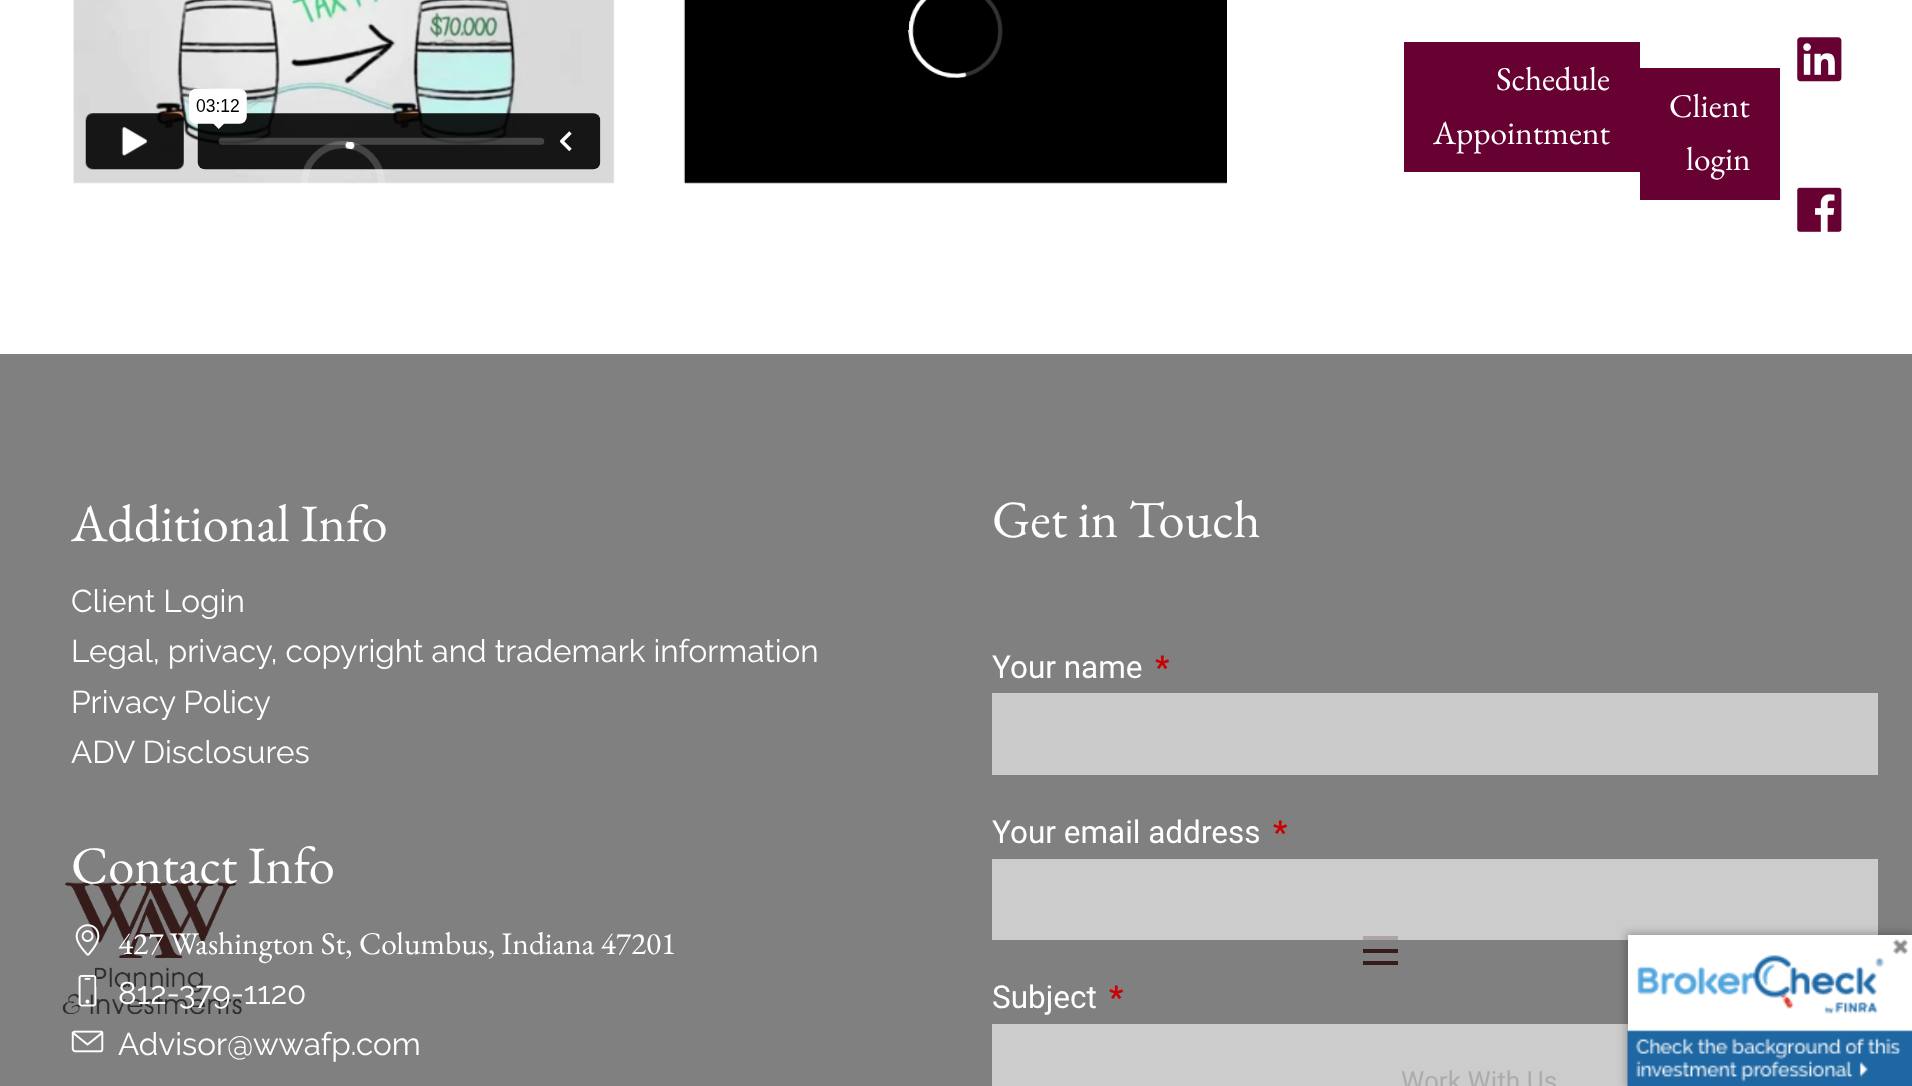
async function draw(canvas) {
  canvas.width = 1912
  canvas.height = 1086
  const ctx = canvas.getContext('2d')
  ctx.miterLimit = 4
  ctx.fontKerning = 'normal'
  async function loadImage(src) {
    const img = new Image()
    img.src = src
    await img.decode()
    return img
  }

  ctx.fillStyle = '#fff'
  ctx.fillRect(0, 0, 1912, 1086)
  ctx.fillStyle = '#808080'
  ctx.fillRect(0, 354, 1912, 732)
  ctx.fillStyle = '#ccc'
  ctx.fillRect(992, 1024, 636, 62)
  ctx.fillRect(992, 859, 886, 81)
  ctx.drawImage(await loadImage('image0.png'), 73, 0, 542, 184)
  ctx.drawImage(await loadImage('image1.png'), 683, 0, 544, 184)
  ctx.drawImage(await loadImage('image2.png'), 62, 882, 180, 132)
  ctx.fillStyle = '#361d1a'
  ctx.fillRect(1363, 961, 35, 4)
  ctx.fillRect(1363, 949, 35, 4)
  ctx.fillStyle = '#aea4a3'
  ctx.fillRect(1363, 936, 35, 4)
  ctx.fillStyle = '#660132'
  ctx.fillRect(1404, 42, 236, 130)
  ctx.font = '33.25px EB Garamond'
  ctx.fillStyle = '#fff'
  ctx.fillText('Schedule', 1496, 90)
  ctx.fillText('Appointment', 1433, 144)
  ctx.fillStyle = '#660132'
  ctx.fillRect(1640, 68, 140, 132)
  ctx.fillStyle = '#fff'
  ctx.fillText('Client', 1669, 117)
  ctx.fillText('login', 1686, 170)
  ctx.drawImage(await loadImage('image3.png'), 1797, 37, 45, 45)
  ctx.drawImage(await loadImage('image4.png'), 1797, 187, 45, 45)
  ctx.font = '26.25px Roboto'
  ctx.fillStyle = '#adacac'
  ctx.fillText('Work With Us', 1401, 1090)
  ctx.font = '52.5px EB Garamond'
  ctx.fillStyle = '#fff'
  ctx.fillText('Additional Info', 71, 541)
  ctx.font = '100 31.5px Raleway'
  ctx.fillText('Client Login', 71, 612)
  ctx.fillText('Legal, privacy, copyright and trademark information', 71, 662)
  ctx.fillText('Privacy Policy', 71, 713)
  ctx.fillText('ADV Disclosures', 71, 763)
  ctx.font = '52.5px EB Garamond'
  ctx.fillText('Contact Info', 71, 883)
  ctx.drawImage(await loadImage('image5.png'), 75, 924, 25, 32)
  ctx.font = '31.5px EB Garamond'
  ctx.fillText('427 Washington St, Columbus, Indiana 47201', 118, 954)
  ctx.drawImage(await loadImage('image6.png'), 78, 975, 19, 32)
  ctx.font = '100 31.5px Raleway'
  ctx.fillText('812-379-1120', 118, 1004)
  ctx.drawImage(await loadImage('image7.png'), 71, 1030, 33, 23)
  ctx.fillText('Advisor@wwafp.com', 118, 1055)
  ctx.font = '52.5px EB Garamond'
  ctx.fillText('Get in Touch', 992, 537)
  ctx.font = '31.5px Roboto'
  ctx.fillText('Your name', 992, 678)
  ctx.font = 'bold 31.5px Roboto'
  ctx.fillStyle = '#c00'
  ctx.fillText('*', 1155, 678)
  ctx.fillStyle = '#cbcbcb'
  ctx.fillRect(992, 693, 886, 82)
  ctx.font = '31.5px Roboto'
  ctx.fillStyle = '#fff'
  ctx.fillText('Your email address', 992, 843)
  ctx.font = 'bold 31.5px Roboto'
  ctx.fillStyle = '#c00'
  ctx.fillText('*', 1273, 843)
  ctx.font = '31.5px Roboto'
  ctx.fillStyle = '#fff'
  ctx.fillText('Subject', 992, 1008)
  ctx.font = 'bold 31.5px Roboto'
  ctx.fillStyle = '#c00'
  ctx.fillText('*', 1109, 1008)
  ctx.fillStyle = '#fff'
  ctx.fillRect(1628, 935, 284, 97)
  ctx.save()
  ctx.beginPath()
  ctx.moveTo(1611, 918)
  ctx.lineTo(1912, 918)
  ctx.lineTo(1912, 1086)
  ctx.lineTo(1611, 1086)
  ctx.closePath()
  ctx.moveTo(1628, 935)
  ctx.lineTo(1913, 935)
  ctx.lineTo(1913, 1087)
  ctx.lineTo(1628, 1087)
  ctx.closePath()
  ctx.clip('evenodd')
  ctx.fillStyle = '#00000040'
  ctx.filter = 'blur(4.5px)'
  ctx.beginPath()
  ctx.rect(1626, 933, 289, 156)
  ctx.fill()
  ctx.filter = 'none'
  ctx.restore()
  ctx.drawImage(await loadImage('image8.png'), 1627, 939, 285, 147)
}

draw(document.querySelector('canvas'))
